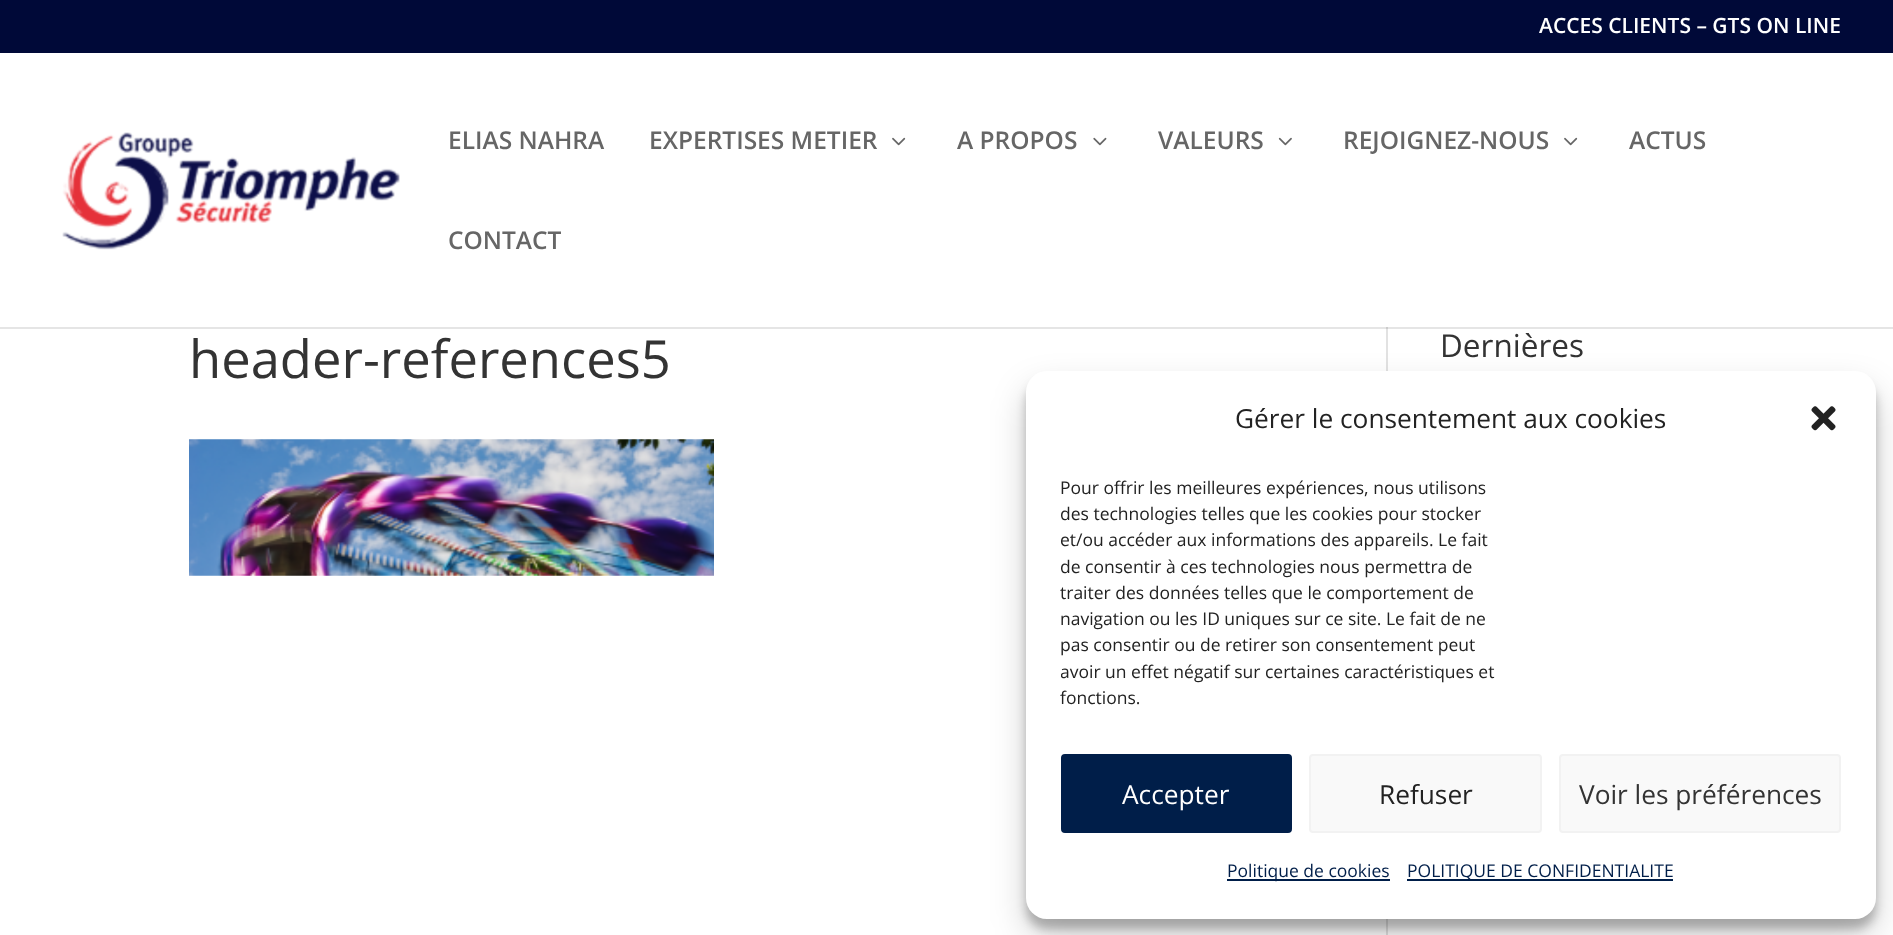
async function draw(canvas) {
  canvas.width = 1893
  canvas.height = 935
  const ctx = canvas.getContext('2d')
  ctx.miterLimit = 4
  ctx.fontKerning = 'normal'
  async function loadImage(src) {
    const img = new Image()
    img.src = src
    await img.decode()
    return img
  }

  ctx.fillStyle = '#fff'
  ctx.fillRect(0, 0, 1893, 935)
  ctx.fillStyle = '#000938'
  ctx.fillRect(0, 0, 1893, 53)
  ctx.font = '600 21px Open Sans'
  ctx.fillStyle = '#fff'
  ctx.fillText('ACCES CLIENTS – GTS ON LINE', 1539, 33)
  ctx.fillStyle = '#e2e2e2'
  ctx.fillRect(1386, 327, 2, 608)
  ctx.fillStyle = '#0000001a'
  ctx.beginPath()
  ctx.moveTo(0, 327)
  ctx.lineTo(0, 329)
  ctx.lineTo(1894, 329)
  ctx.lineTo(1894, 54)
  ctx.lineTo(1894, 327)
  ctx.closePath()
  ctx.fill()
  ctx.drawImage(await loadImage('image0.png'), 62, 132, 338, 118)
  ctx.font = '600 24.5px Open Sans'
  ctx.fillStyle = '#666'
  ctx.fillText('ELIAS NAHRA', 448, 149)
  ctx.fillText('EXPERTISES METIER', 649, 149)
  ctx.drawImage(await loadImage('image1.png'), 892, 137, 14, 9)
  ctx.fillText('A PROPOS', 957, 149)
  ctx.drawImage(await loadImage('image2.png'), 1093, 137, 14, 9)
  ctx.fillText('VALEURS', 1158, 149)
  ctx.drawImage(await loadImage('image3.png'), 1278, 137, 14, 9)
  ctx.fillText('REJOIGNEZ-NOUS', 1343, 149)
  ctx.drawImage(await loadImage('image1.png'), 1564, 137, 14, 9)
  ctx.fillText('ACTUS', 1629, 149)
  ctx.fillText('CONTACT', 448, 249)
  ctx.font = '52.5px Open Sans'
  ctx.fillStyle = '#333'
  ctx.fillText('header-references5', 189, 378)
  ctx.drawImage(await loadImage('image4.png'), 189, 439, 525, 137)
  ctx.font = '31.5px Open Sans'
  ctx.fillText('Dernières', 1440, 357)
  ctx.fillStyle = '#0000003b'
  ctx.filter = 'blur(5px)'
  ctx.beginPath()
  ctx.roundRect(1026, 382, 850, 547, 21)
  ctx.fill()
  ctx.filter = 'none'
  ctx.fillStyle = '#00000030'
  ctx.filter = 'blur(17.5px)'
  ctx.beginPath()
  ctx.roundRect(1026, 389, 850, 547, 21)
  ctx.fill()
  ctx.filter = 'none'
  ctx.fillStyle = '#fff'
  ctx.beginPath()
  ctx.roundRect(1026, 371, 850, 548, 21)
  ctx.fill()
  ctx.font = '26.25px Open Sans'
  ctx.fillStyle = '#222'
  ctx.fillText('Gérer le consentement aux cookies', 1235, 428)
  ctx.drawImage(await loadImage('image5.png'), 1811, 406, 25, 25)
  ctx.font = '17.5px Open Sans'
  ctx.fillText('Pour offrir les meilleures expériences, nous utilisons', 1060, 494)
  ctx.save()
  ctx.beginPath()
  ctx.rect(1061, 474, 780, 245)
  ctx.clip()
  ctx.fillText('des technologies telles que les cookies pour stocker', 1060, 520)
  ctx.fillText('et/ou accéder aux informations des appareils. Le fait', 1060, 546)
  ctx.fillText('de consentir à ces technologies nous permettra de', 1060, 573)
  ctx.restore()
  ctx.fillText('traiter des données telles que le comportement de', 1060, 599)
  ctx.fillText('navigation ou les ID uniques sur ce site. Le fait de ne', 1060, 625)
  ctx.fillText('pas consentir ou de retirer son consentement peut', 1060, 651)
  ctx.save()
  ctx.beginPath()
  ctx.rect(1061, 474, 780, 245)
  ctx.clip()
  ctx.fillText('avoir un effet négatif sur certaines caractéristiques et', 1060, 678)
  ctx.restore()
  ctx.fillText('fonctions.', 1060, 704)
  ctx.fillStyle = '#001e49'
  ctx.beginPath()
  ctx.roundRect(1062, 755, 229, 77, 3)
  ctx.fill()
  ctx.strokeStyle = '#001e49'
  ctx.lineWidth = 2
  ctx.stroke()
  ctx.font = '26.25px Open Sans'
  ctx.fillStyle = '#fff'
  ctx.fillText('Accepter', 1122, 804)
  ctx.fillStyle = '#f9f9f9'
  ctx.beginPath()
  ctx.roundRect(1310, 755, 231, 77, 3)
  ctx.fill()
  ctx.strokeStyle = '#f2f2f2'
  ctx.stroke()
  ctx.fillStyle = '#222'
  ctx.fillText('Refuser', 1379, 804)
  ctx.fillStyle = '#f9f9f9'
  ctx.beginPath()
  ctx.roundRect(1560, 755, 280, 77, 3)
  ctx.fill()
  ctx.stroke()
  ctx.fillStyle = '#333'
  ctx.fillText('Voir les préférences', 1579, 804)
  ctx.fillStyle = '#001e49'
  ctx.fillRect(1227, 879, 163, 2)
  ctx.font = '17.5px Open Sans'
  ctx.fillText('Politique de cookies', 1227, 877)
  ctx.fillRect(1407, 879, 266, 2)
  ctx.fillText('POLITIQUE DE CONFIDENTIALITE', 1407, 877)
}

draw(document.querySelector('canvas'))
